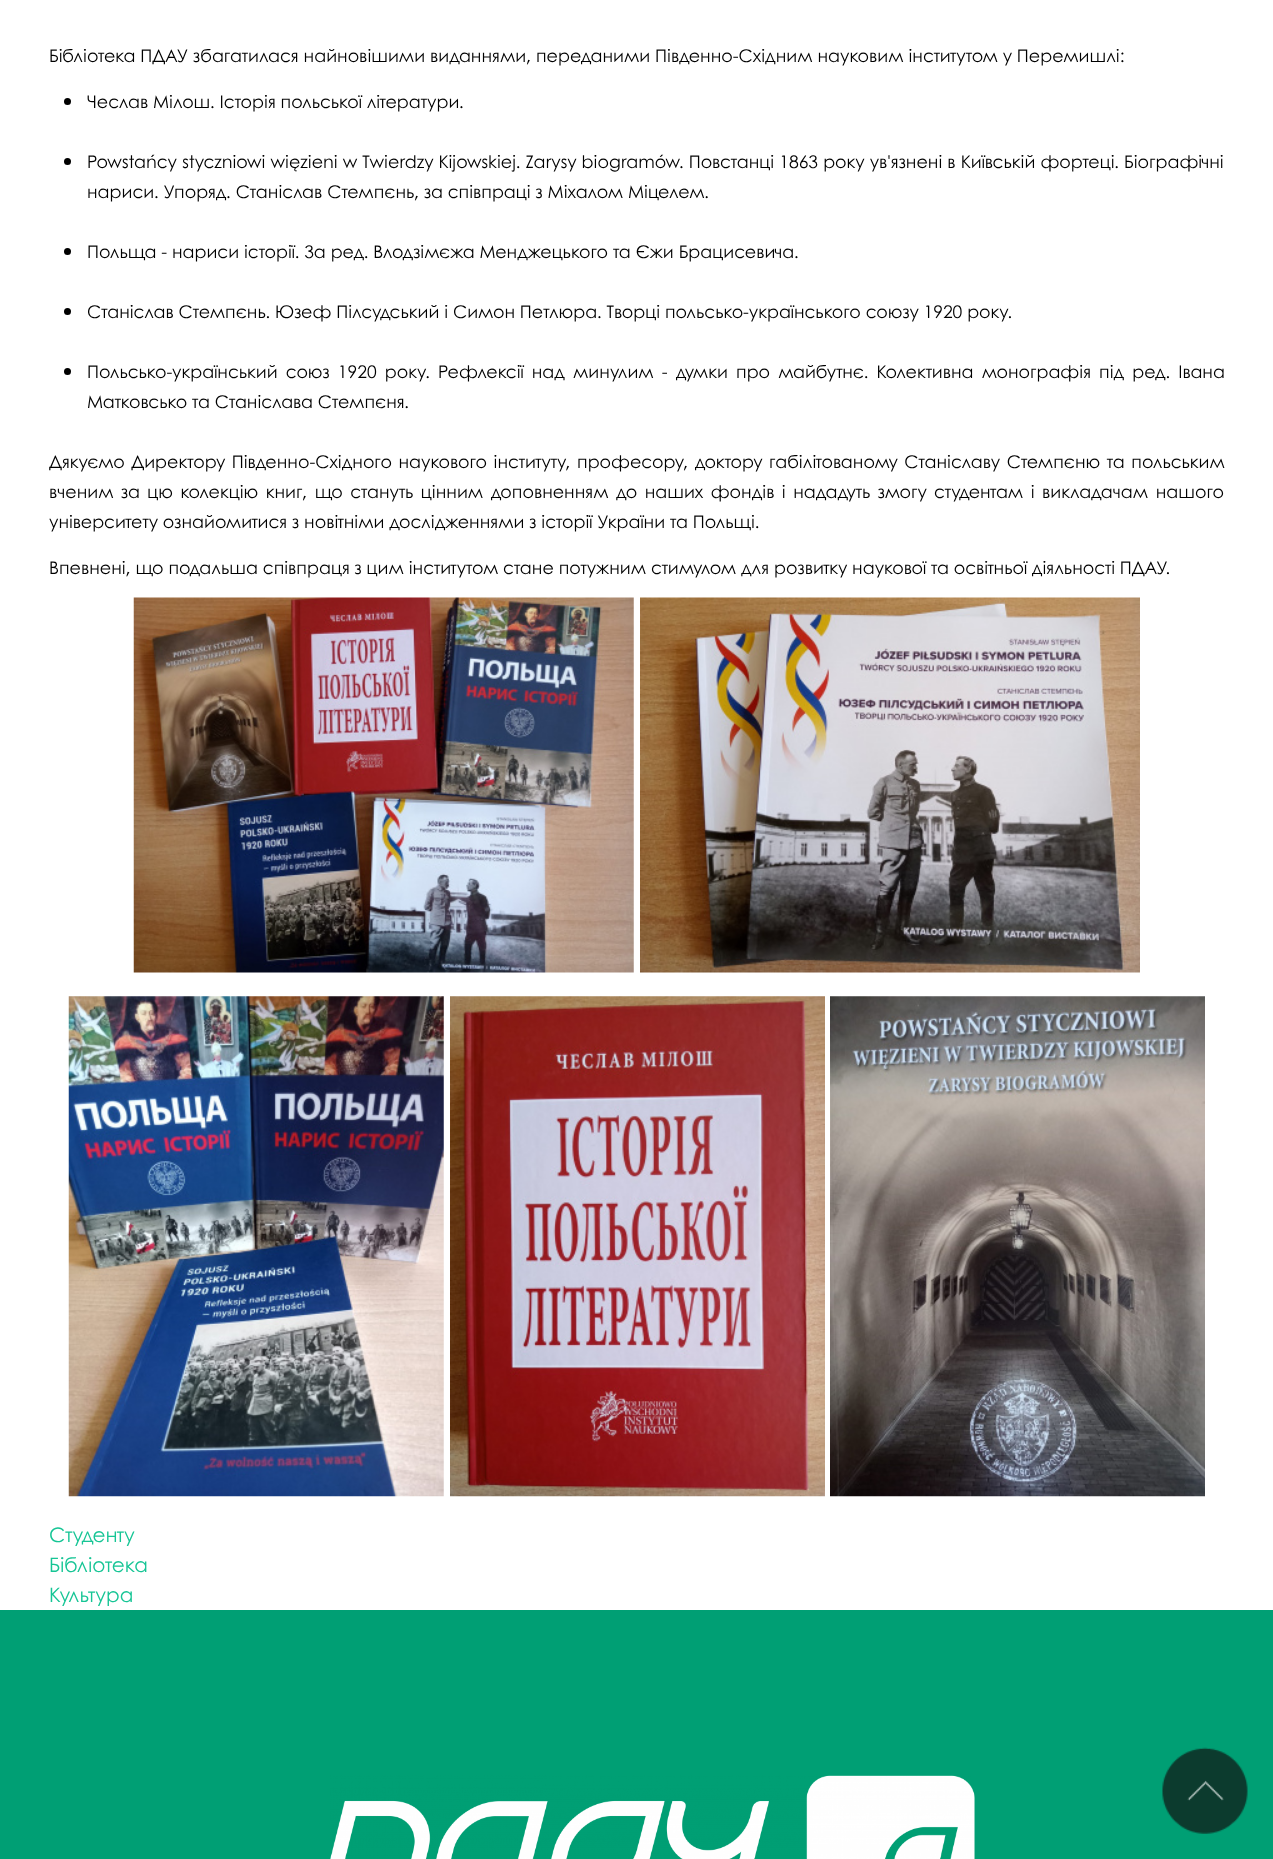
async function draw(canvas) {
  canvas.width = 1273
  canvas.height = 1859
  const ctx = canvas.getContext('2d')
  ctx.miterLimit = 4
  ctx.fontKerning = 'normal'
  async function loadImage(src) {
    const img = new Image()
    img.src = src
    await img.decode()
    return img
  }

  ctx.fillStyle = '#fff'
  ctx.fillRect(0, 0, 1273, 1859)
  ctx.font = '17.5px Century Gothic'
  ctx.fillStyle = '#000'
  ctx.fillText('Бібліотека ПДАУ збагатилася найновішими виданнями, переданими Південно-Східним науковим інститутом у Перемишлі:', 49, 62)
  ctx.beginPath()
  ctx.arc(67.5, 101.5, 3.5, 0, 2 * Math.PI)
  ctx.fill()
  ctx.fillText('Чеслав Мілош. Історія польської літератури.', 87, 108)
  ctx.beginPath()
  ctx.arc(67.5, 161.5, 3.5, 0, 2 * Math.PI)
  ctx.fill()
  ctx.wordSpacing = '0.25px'
  ctx.fillText('Powstańcy styczniowi więzieni w Twierdzy Kijowskiej. Zarysy biogramów. Повстанці 1863 року ув\'язнені в Київській фортеці. Біографічні', 87, 168)
  ctx.wordSpacing = '0px'
  ctx.fillText('нариси. Упоряд. Станіслав Стемпєнь, за співпраці з Міхалом Міцелем.', 87, 198)
  ctx.beginPath()
  ctx.arc(67.5, 251.5, 3.5, 0, 2 * Math.PI)
  ctx.fill()
  ctx.fillText('Польща - нариси історії. За ред. Влодзімєжа Менджецького та Єжи Брацисевича.', 87, 258)
  ctx.beginPath()
  ctx.arc(67.5, 311.5, 3.5, 0, 2 * Math.PI)
  ctx.fill()
  ctx.fillText('Станіслав Стемпєнь. Юзеф Пілсудський і Симон Петлюра. Творці польсько-українського союзу 1920 року.', 87, 318)
  ctx.beginPath()
  ctx.arc(67.5, 371.5, 3.5, 0, 2 * Math.PI)
  ctx.fill()
  ctx.wordSpacing = '3.25px'
  ctx.fillText('Польсько-український союз 1920 року. Рефлексії над минулим - думки про майбутнє. Колективна монографія під ред. Івана', 87, 378)
  ctx.wordSpacing = '0px'
  ctx.fillText('Матковсько та Станіслава Стемпєня.', 87, 408)
  ctx.wordSpacing = '1.75px'
  ctx.fillText('Дякуємо Директору Південно-Східного наукового інституту, професору, доктору габілітованому Станіславу Стемпєню та польським', 49, 468)
  ctx.wordSpacing = '2.6px'
  ctx.fillText('вченим за цю колекцію книг, що стануть цінним доповненням до наших фондів і нададуть змогу студентам і викладачам нашого', 49, 498)
  ctx.wordSpacing = '0px'
  ctx.fillText('університету ознайомитися з новітніми дослідженнями з історії України та Польщі.', 49, 528)
  ctx.fillText('Впевнені, що подальша співпраця з цим інститутом стане потужним стимулом для розвитку наукової та освітньої діяльності ПДАУ.', 49, 574)
  ctx.drawImage(await loadImage('image0.png'), 133, 597, 501, 376)
  ctx.drawImage(await loadImage('image1.png'), 640, 597, 500, 376)
  ctx.drawImage(await loadImage('image2.png'), 68, 996, 376, 501)
  ctx.drawImage(await loadImage('image3.png'), 450, 996, 375, 501)
  ctx.drawImage(await loadImage('image4.png'), 830, 996, 375, 501)
  ctx.font = '20px Century Gothic'
  ctx.fillStyle = '#16c595'
  ctx.fillText('Студенту', 49, 1542)
  ctx.fillText('Бібліотека', 49, 1572)
  ctx.fillText('Культура', 49, 1602)
  ctx.fillStyle = '#009f74'
  ctx.fillRect(0, 1610, 1273, 249)
  ctx.drawImage(await loadImage('image5.png'), 330, 1775, 645, 84)
  ctx.drawImage(await loadImage('image6.png'), 1162, 1747, 86, 87)
}

draw(document.querySelector('canvas'))
